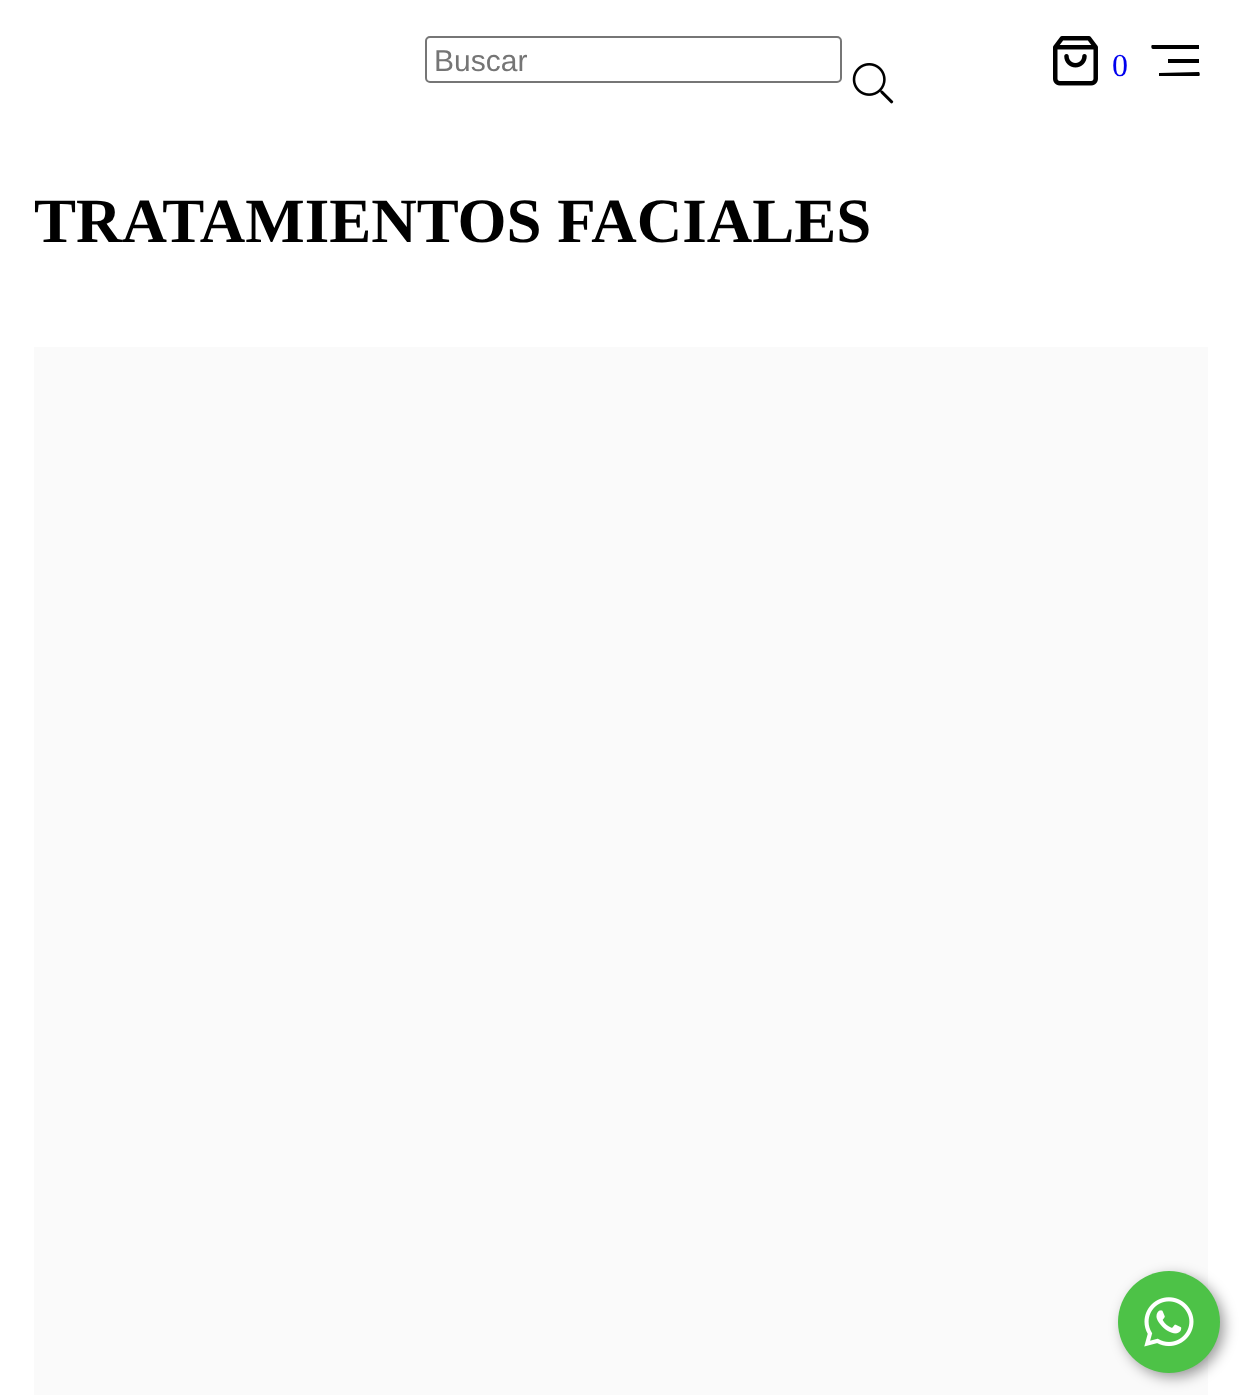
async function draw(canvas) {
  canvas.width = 1240
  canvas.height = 1395
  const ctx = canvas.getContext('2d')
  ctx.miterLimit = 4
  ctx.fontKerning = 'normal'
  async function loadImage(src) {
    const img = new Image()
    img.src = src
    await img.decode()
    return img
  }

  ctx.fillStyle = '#fff'
  ctx.fillRect(0, 0, 1240, 1395)
  ctx.beginPath()
  ctx.roundRect(426, 37, 415, 45, 4)
  ctx.strokeStyle = '#767676'
  ctx.lineWidth = 2
  ctx.stroke()
  ctx.font = '30px Liberation Sans'
  ctx.fillStyle = '#757575'
  ctx.fillText('Buscar', 434, 71)
  ctx.drawImage(await loadImage('image0.png'), 852, 63, 42, 41)
  ctx.drawImage(await loadImage('image1.png'), 1053, 36, 45, 50)
  ctx.font = '32px Liberation Serif'
  ctx.fillStyle = '#00e'
  ctx.fillText('0', 1112, 76)
  ctx.fillStyle = '#000'
  ctx.beginPath()
  ctx.moveTo(1199, 49)
  ctx.lineTo(1153, 49)
  ctx.bezierCurveTo(1151, 49, 1151, 45, 1152, 45)
  ctx.lineTo(1199, 45)
  ctx.closePath()
  ctx.moveTo(1199, 63)
  ctx.lineTo(1168, 63)
  ctx.lineTo(1168, 59)
  ctx.lineTo(1199, 59)
  ctx.closePath()
  ctx.moveTo(1199, 76)
  ctx.lineTo(1159, 76)
  ctx.lineTo(1159, 73)
  ctx.lineTo(1199, 72)
  ctx.bezierCurveTo(1200, 73, 1200, 76, 1199, 76)
  ctx.closePath()
  ctx.fill()
  ctx.font = 'bold 63px Liberation Serif'
  ctx.fillText('TRATAMIENTOS FACIALES', 34, 242)
  ctx.fillStyle = '#fafafa'
  ctx.fillRect(34, 347, 1174, 1048)
  ctx.fillStyle = '#00000066'
  ctx.filter = 'blur(7px)'
  ctx.beginPath()
  ctx.roundRect(1123, 1276, 101, 101, 50.5)
  ctx.fill()
  ctx.filter = 'none'
  ctx.fillStyle = '#4dc247'
  ctx.beginPath()
  ctx.arc(1169, 1322, 51, 0, 2 * Math.PI)
  ctx.fill()
  ctx.drawImage(await loadImage('image2.png'), 1144, 1297, 50, 50)
}

draw(document.querySelector('canvas'))
